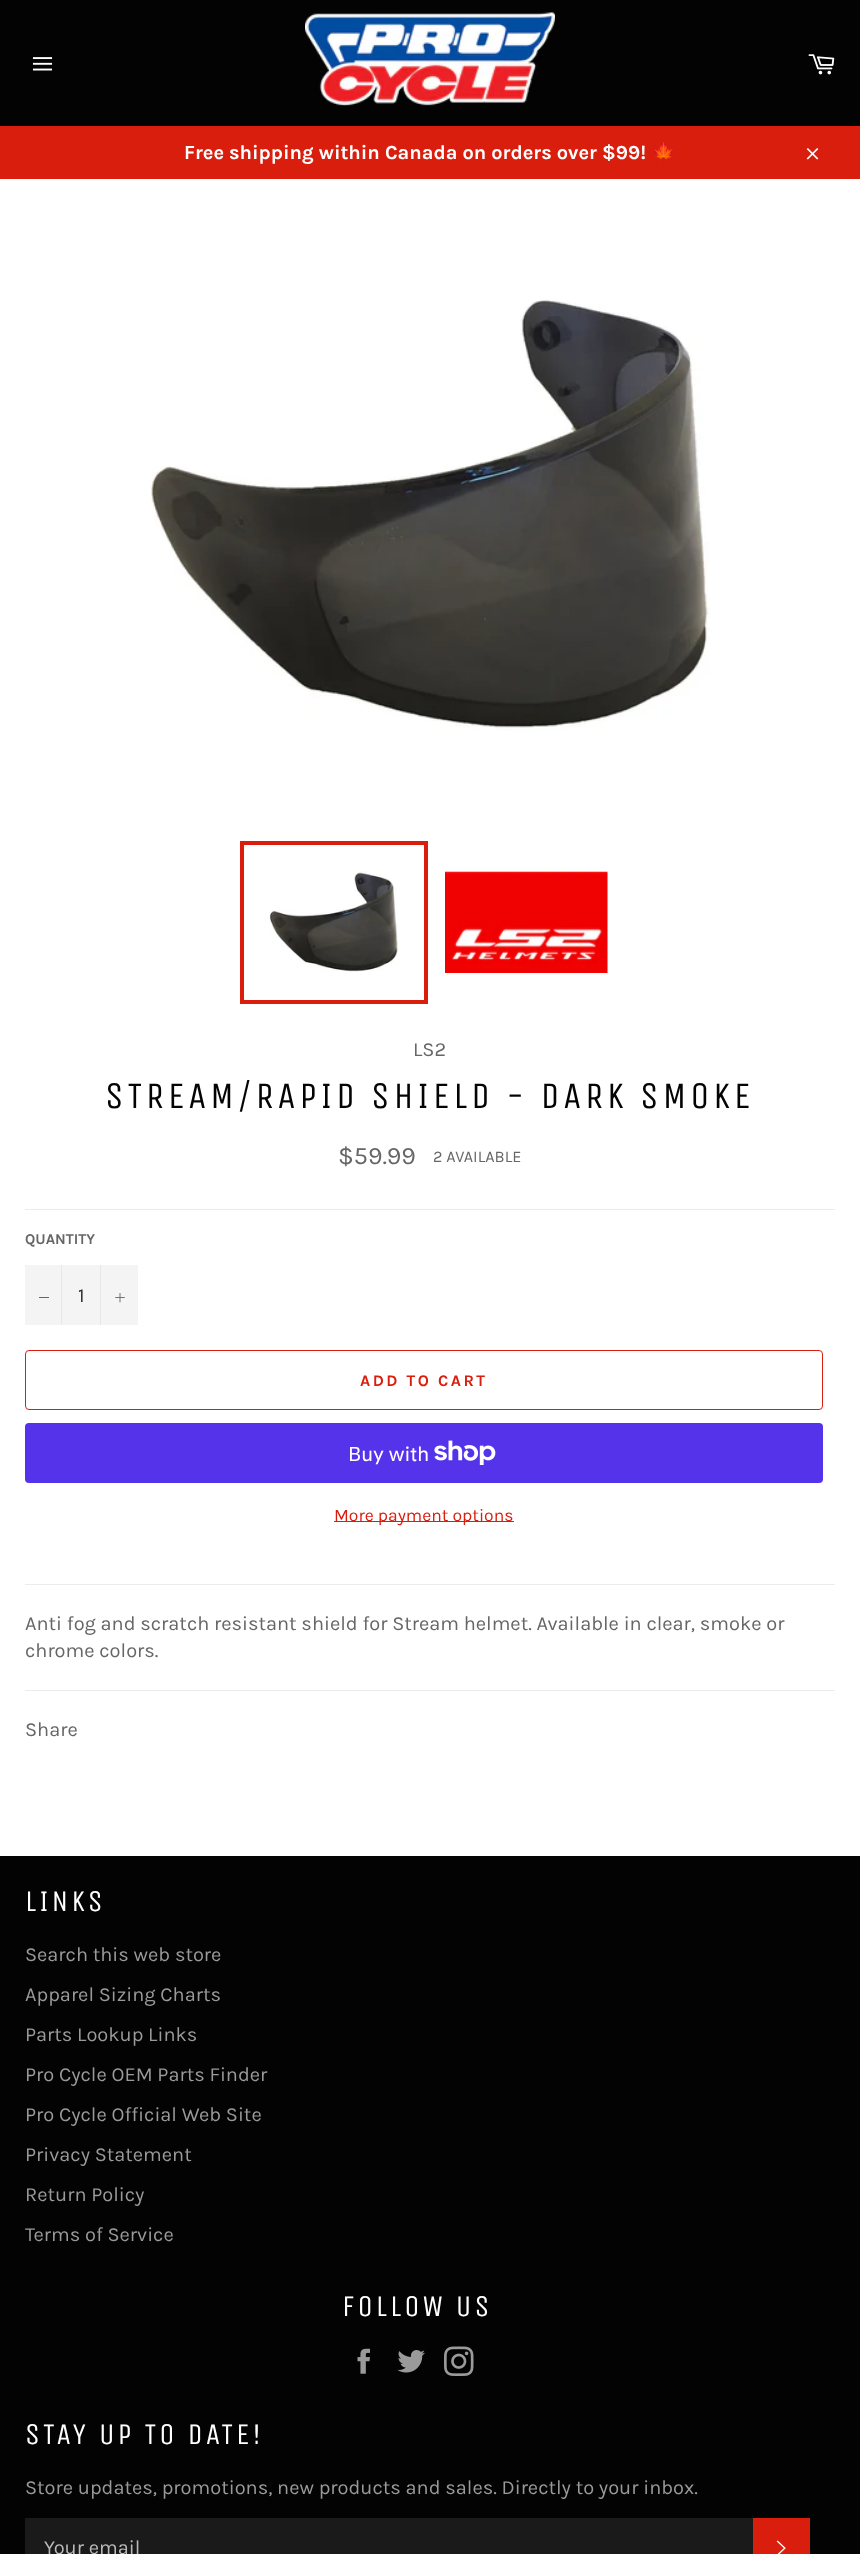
async function draw(canvas) {
  canvas.width = 860
  canvas.height = 2554
  const ctx = canvas.getContext('2d')
  ctx.miterLimit = 4
  ctx.fontKerning = 'normal'
  async function loadImage(src) {
    const img = new Image()
    img.src = src
    await img.decode()
    return img
  }

  ctx.fillStyle = '#030303'
  ctx.fillRect(0, 0, 860, 2554)
  ctx.drawImage(await loadImage('image0.png'), 32, 57, 21, 14)
  ctx.drawImage(await loadImage('image1.png'), 305, 12, 250, 94)
  ctx.drawImage(await loadImage('image2.png'), 808, 54, 27, 21)
  ctx.fillStyle = '#d91e0e'
  ctx.fillRect(0, 126, 860, 53)
  ctx.font = 'bold 20px Karla'
  ctx.fillStyle = '#fff'
  ctx.fillText('Free shipping within Canada on orders over $99!', 184, 159)
  ctx.font = 'bold 20px Noto Color Emoji'
  ctx.fillText('🍁', 651, 159)
  ctx.drawImage(await loadImage('image3.png'), 806, 148, 13, 12)
  ctx.fillRect(0, 179, 860, 1677)
  ctx.drawImage(await loadImage('image4.png'), 150, 299, 560, 432)
  ctx.drawImage(await loadImage('image5.png'), 269, 871, 129, 101)
  ctx.strokeStyle = '#d91e0e'
  ctx.lineWidth = 4
  ctx.strokeRect(242, 843, 184, 159)
  ctx.drawImage(await loadImage('image6.png'), 445, 871, 163, 102)
  ctx.font = '20px Karla'
  ctx.fillStyle = '#666'
  ctx.fillText('LS2', 413, 1056)
  ctx.letterSpacing = '3.75px'
  ctx.font = '37.5px Unica One'
  ctx.fillStyle = '#030303'
  ctx.fillText('STREAM/RAPID SHIELD - DARK SMOKE', 105, 1108)
  ctx.letterSpacing = '0px'
  ctx.font = '25px Karla'
  ctx.fillStyle = '#666'
  ctx.fillText('$59.99', 338, 1164)
  ctx.font = '16.25px Karla'
  ctx.fillText('2 AVAILABLE', 433, 1162)
  ctx.fillStyle = '#ececec'
  ctx.fillRect(25, 1209, 810, 1)
  ctx.font = 'bold 15px Karla'
  ctx.fillStyle = '#666'
  ctx.fillText('QUANTITY', 25, 1244)
  ctx.fillStyle = '#f4f4f4'
  ctx.fillRect(25, 1265, 113, 60)
  ctx.fillStyle = '#e7e7e7'
  ctx.fillRect(61, 1265, 1, 60)
  ctx.fillStyle = '#666'
  ctx.fillRect(39, 1297, 10, 1)
  ctx.font = '20px Karla'
  ctx.fillStyle = '#333'
  ctx.fillText('1', 78, 1302)
  ctx.fillStyle = '#e7e7e7'
  ctx.fillRect(100, 1265, 1, 60)
  ctx.drawImage(await loadImage('image7.png'), 115, 1293, 10, 10)
  ctx.beginPath()
  ctx.roundRect(25.5, 1350.5, 797, 59, 3.5)
  ctx.lineWidth = 1
  ctx.stroke()
  ctx.letterSpacing = '2.5px'
  ctx.font = 'bold 16.25px Karla'
  ctx.fillStyle = '#d91e0e'
  ctx.fillText('ADD TO CART', 360, 1386)
  ctx.fillStyle = '#5433eb'
  ctx.beginPath()
  ctx.roundRect(25, 1423, 798, 60, 4)
  ctx.fill()
  ctx.letterSpacing = '0px'
  ctx.font = '20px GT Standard'
  ctx.fillStyle = '#fff'
  ctx.fillText('Buy with', 348, 1461)
  ctx.drawImage(await loadImage('image8.png'), 434, 1440, 62, 25)
  ctx.fillStyle = '#d91e0e'
  ctx.fillRect(334, 1521, 180, 1)
  ctx.font = '17.5px Karla'
  ctx.fillText('More payment options', 334, 1521)
  ctx.fillStyle = '#ececec'
  ctx.fillRect(25, 1584, 810, 1)
  ctx.font = '20px Karla'
  ctx.fillStyle = '#666'
  ctx.fillText('Anti fog and scratch resistant shield for Stream helmet. Available in clear, smoke or', 25, 1630)
  ctx.fillText('chrome colors.', 25, 1657)
  ctx.fillStyle = '#ececec'
  ctx.fillRect(25, 1690, 810, 1)
  ctx.fillStyle = '#666'
  ctx.fillText('Share', 25, 1736)
  ctx.letterSpacing = '3px'
  ctx.font = '30px Unica One'
  ctx.fillStyle = '#fff'
  ctx.fillText('LINKS', 25, 1911)
  ctx.letterSpacing = '0px'
  ctx.font = '20px Karla'
  ctx.fillStyle = '#9a9a9a'
  ctx.fillText('Search this web store', 25, 1961)
  ctx.fillText('Apparel Sizing Charts', 25, 2001)
  ctx.fillText('Parts Lookup Links', 25, 2041)
  ctx.fillText('Pro Cycle OEM Parts Finder', 25, 2081)
  ctx.fillText('Pro Cycle Official Web Site', 25, 2121)
  ctx.fillText('Privacy Statement', 25, 2161)
  ctx.fillText('Return Policy', 25, 2201)
  ctx.fillText('Terms of Service', 25, 2241)
  ctx.letterSpacing = '3px'
  ctx.font = '30px Unica One'
  ctx.fillStyle = '#fff'
  ctx.fillText('FOLLOW US', 342, 2316)
  ctx.drawImage(await loadImage('image9.png'), 357, 2348, 13, 26)
  ctx.drawImage(await loadImage('image10.png'), 397, 2350, 28, 23)
  ctx.drawImage(await loadImage('image11.png'), 444, 2346, 30, 30)
  ctx.fillText('STAY UP TO DATE!', 25, 2444)
  ctx.letterSpacing = '0px'
  ctx.font = '20px Karla'
  ctx.fillStyle = '#9a9a9a'
  ctx.fillText('Store updates, promotions, new products and sales. Directly to your inbox.', 25, 2494)
  ctx.fillStyle = '#1a1a1a'
  ctx.fillRect(25, 2518, 728, 36)
  ctx.fillStyle = '#bababa'
  ctx.fillText('Your email', 44, 2554)
  ctx.fillStyle = '#d91e0e'
  ctx.fillRect(753, 2518, 57, 36)
  ctx.drawImage(await loadImage('image12.png'), 776, 2540, 10, 14)
}

draw(document.querySelector('canvas'))
